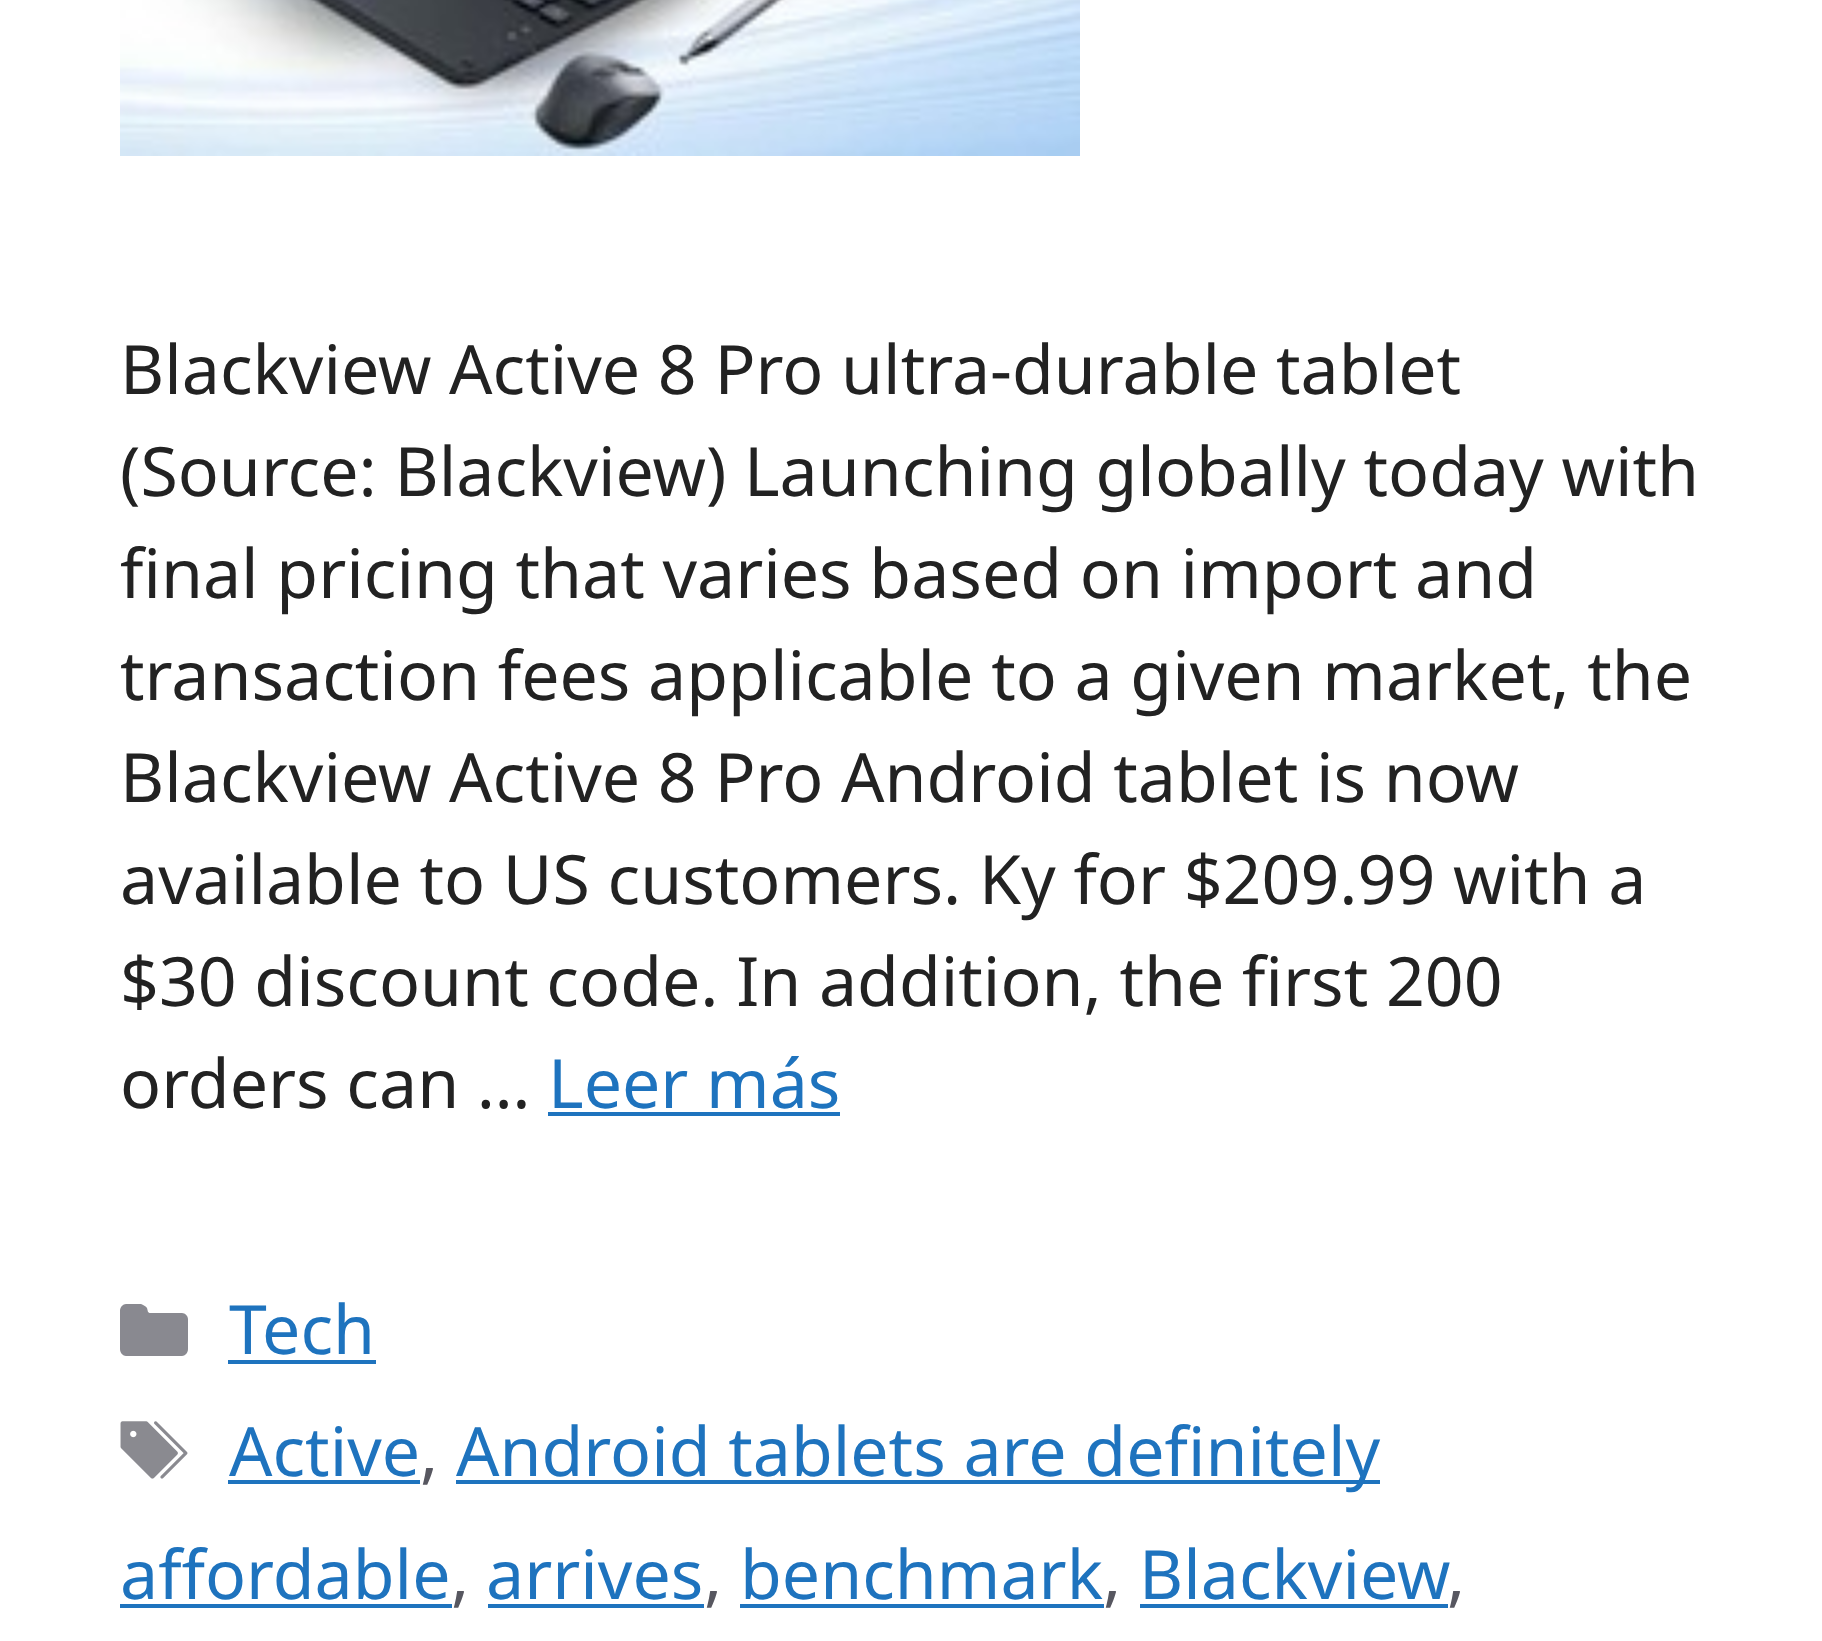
async function draw(canvas) {
  canvas.width = 1822
  canvas.height = 1641
  const ctx = canvas.getContext('2d')
  ctx.miterLimit = 4
  ctx.fontKerning = 'normal'
  async function loadImage(src) {
    const img = new Image()
    img.src = src
    await img.decode()
    return img
  }

  ctx.fillStyle = '#fff'
  ctx.fillRect(0, 0, 1822, 1641)
  ctx.drawImage(await loadImage('image0.png'), 120, 0, 960, 156)
  ctx.font = '68px Noto Sans'
  ctx.fillStyle = '#222'
  ctx.fillText('Blackview Active 8 Pro ultra-durable tablet', 120, 394)
  ctx.fillText('(Source: Blackview) Launching globally today with', 120, 496)
  ctx.fillText('final pricing that varies based on import and', 120, 598)
  ctx.fillText('transaction fees applicable to a given market, the', 120, 700)
  ctx.fillText('Blackview Active 8 Pro Android tablet is now', 120, 802)
  ctx.fillText('available to US customers. Ky for $209.99 with a', 120, 904)
  ctx.fillText('$30 discount code. In addition, the first 200', 120, 1006)
  ctx.fillText('orders can …', 120, 1108)
  ctx.fillStyle = '#1e73be'
  ctx.fillText('Leer más', 548, 1108)
  ctx.fillRect(548, 1112, 292, 4)
  ctx.fillStyle = '#898990'
  ctx.beginPath()
  ctx.moveTo(120, 1311)
  ctx.bezierCurveTo(120, 1307, 123, 1304, 126, 1304)
  ctx.lineTo(141, 1304)
  ctx.bezierCurveTo(143, 1305, 146, 1306, 147, 1308)
  ctx.lineTo(148, 1312)
  ctx.bezierCurveTo(149, 1313, 150, 1313, 150, 1313)
  ctx.lineTo(182, 1313)
  ctx.bezierCurveTo(185, 1313, 188, 1316, 188, 1319)
  ctx.lineTo(188, 1349)
  ctx.bezierCurveTo(188, 1353, 185, 1356, 182, 1356)
  ctx.lineTo(126, 1356)
  ctx.bezierCurveTo(123, 1356, 120, 1353, 120, 1349)
  ctx.closePath()
  ctx.fill()
  ctx.fillStyle = '#1e73be'
  ctx.fillText('Tech', 229, 1354)
  ctx.fillRect(228, 1360, 148, 4)
  ctx.drawImage(await loadImage('image1.png'), 120, 1421, 68, 58)
  ctx.fillText('Active', 229, 1476)
  ctx.fillRect(228, 1480, 192, 4)
  ctx.fillStyle = '#575760'
  ctx.fillText(',', 420, 1476)
  ctx.fillStyle = '#1e73be'
  ctx.fillRect(456, 1480, 924, 4)
  ctx.fillText('Android tablets are definitely', 456, 1476)
  ctx.fillText('affordable', 120, 1599)
  ctx.fillRect(120, 1604, 332, 4)
  ctx.fillStyle = '#575760'
  ctx.fillText(',', 451, 1599)
  ctx.fillStyle = '#1e73be'
  ctx.fillText('arrives', 486, 1599)
  ctx.fillRect(488, 1604, 216, 4)
  ctx.fillStyle = '#575760'
  ctx.fillText(',', 704, 1599)
  ctx.fillStyle = '#1e73be'
  ctx.fillText('benchmark', 740, 1599)
  ctx.fillRect(740, 1604, 364, 4)
  ctx.fillStyle = '#575760'
  ctx.fillText(',', 1103, 1599)
  ctx.fillStyle = '#1e73be'
  ctx.fillText('Blackview', 1139, 1599)
  ctx.fillRect(1140, 1604, 308, 4)
  ctx.fillStyle = '#575760'
  ctx.fillText(',', 1447, 1599)
}

draw(document.querySelector('canvas'))
